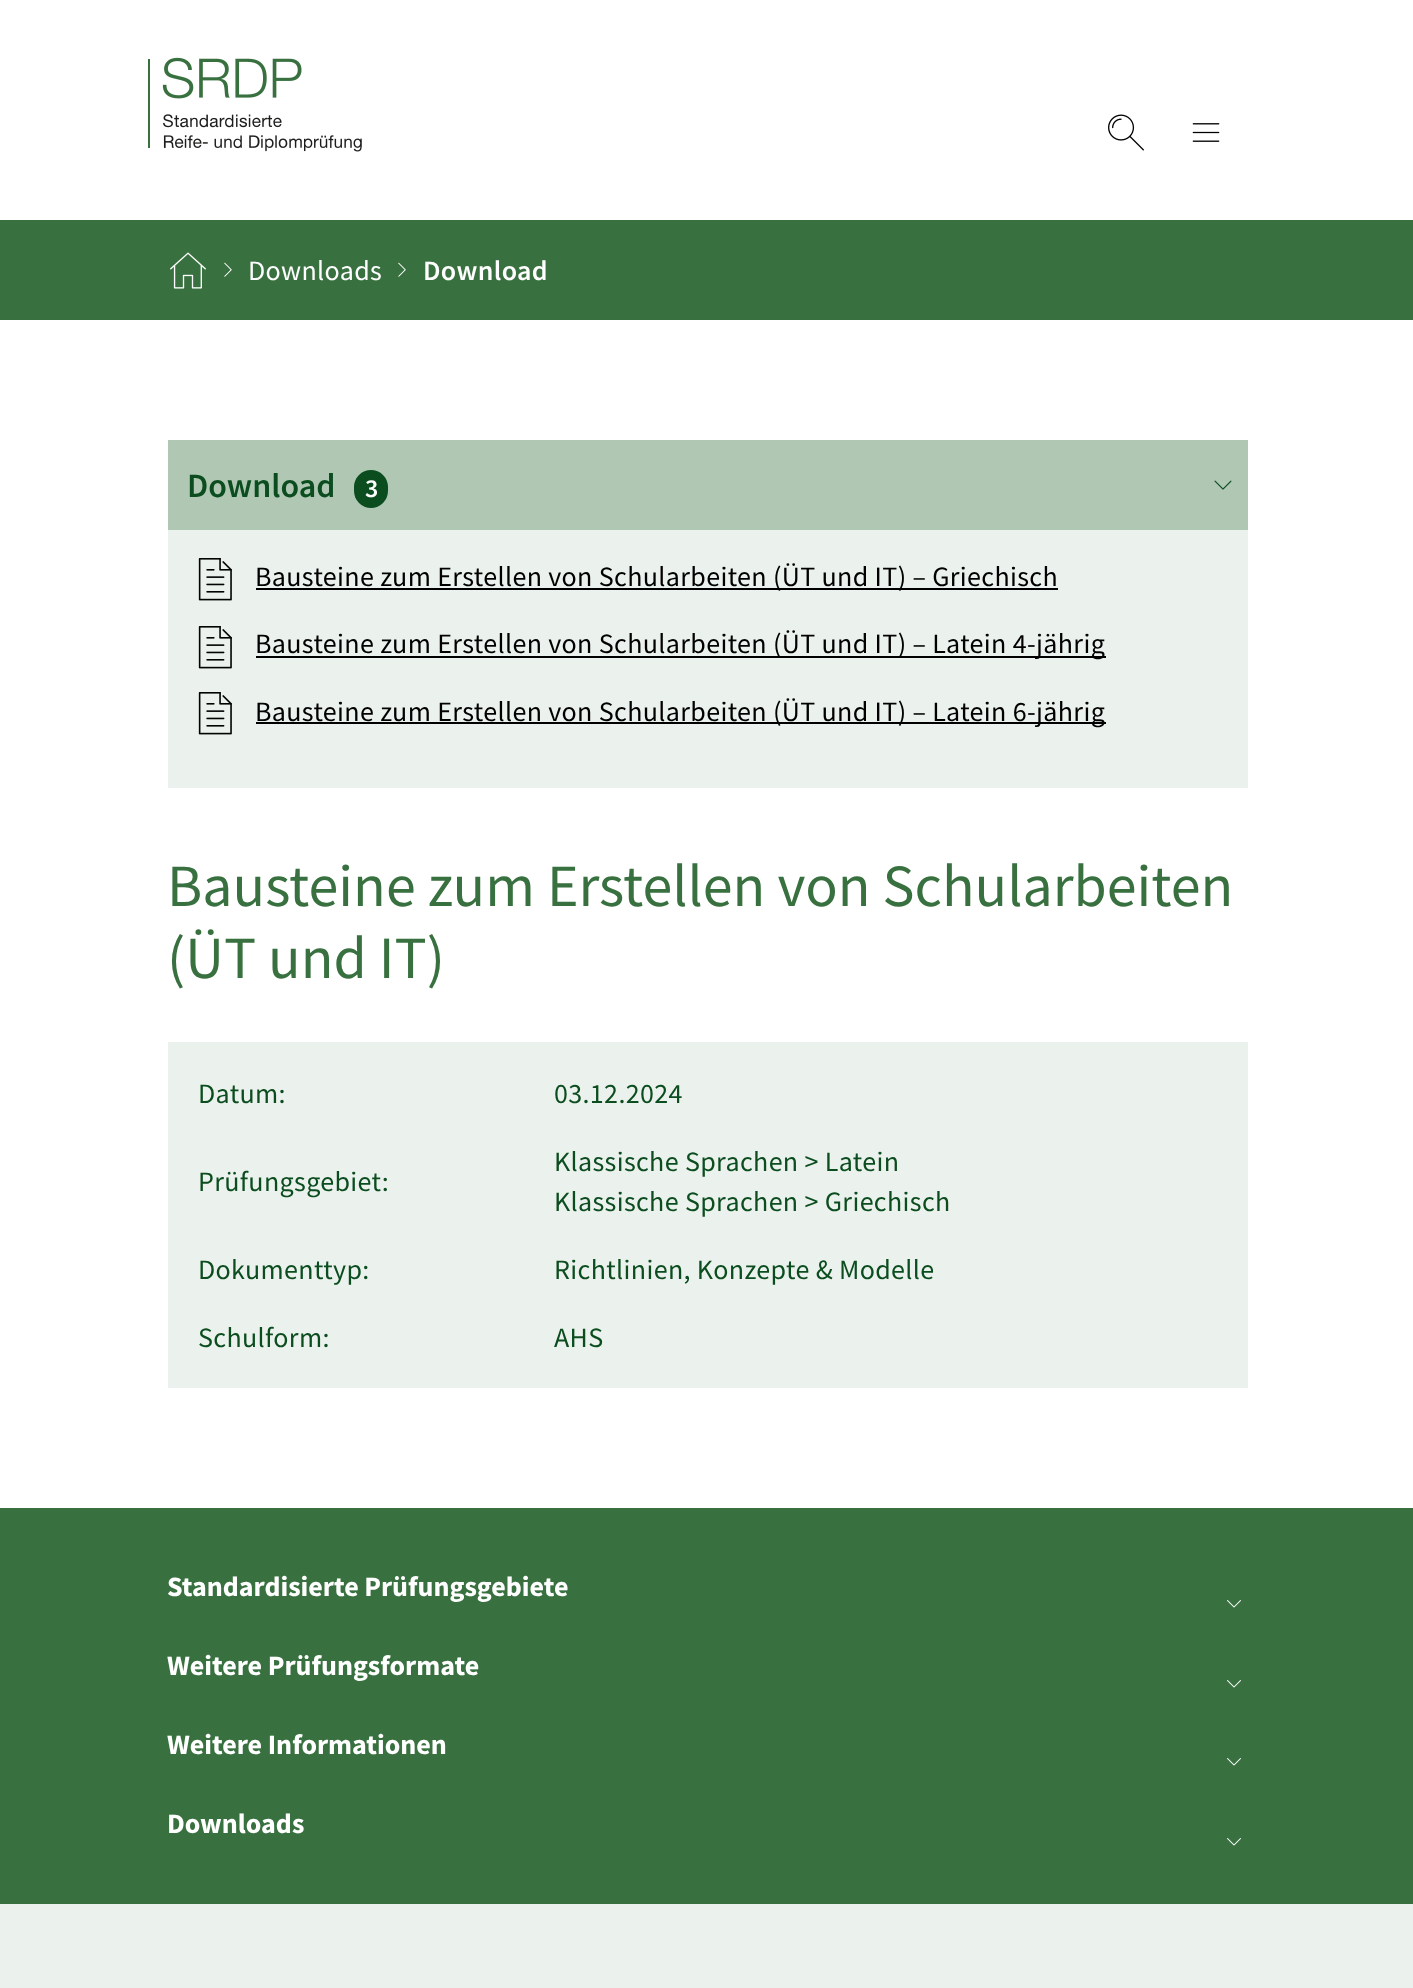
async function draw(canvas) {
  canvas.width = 1413
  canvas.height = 1988
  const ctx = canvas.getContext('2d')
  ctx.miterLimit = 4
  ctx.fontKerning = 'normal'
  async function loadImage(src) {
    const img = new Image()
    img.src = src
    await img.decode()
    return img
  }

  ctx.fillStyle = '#fff'
  ctx.fillRect(0, 0, 1413, 1988)
  ctx.drawImage(await loadImage('image0.png'), 148, 57, 214, 95)
  ctx.drawImage(await loadImage('image1.png'), 1108, 114, 36, 37)
  ctx.drawImage(await loadImage('image2.png'), 1192, 123, 28, 19)
  ctx.fillStyle = '#38713f'
  ctx.fillRect(0, 220, 1413, 100)
  ctx.drawImage(await loadImage('image3.png'), 170, 252, 36, 37)
  ctx.drawImage(await loadImage('image4.png'), 224, 262, 8, 15)
  ctx.letterSpacing = '0.35px'
  ctx.font = '28px Source Sans Pro'
  ctx.fillStyle = '#fff'
  ctx.fillText('Downloads', 248, 280)
  ctx.drawImage(await loadImage('image4.png'), 398, 262, 8, 15)
  ctx.font = '600 28px Source Sans Pro'
  ctx.fillText('Download', 423, 280)
  ctx.fillStyle = '#afc7b3'
  ctx.fillRect(168, 440, 1080, 90)
  ctx.letterSpacing = '0px'
  ctx.font = '600 34px Source Sans Pro'
  ctx.fillStyle = '#0b4d1f'
  ctx.fillText('Download', 187, 497)
  ctx.beginPath()
  ctx.roundRect(354, 470, 34, 38, 17)
  ctx.fill()
  ctx.font = '600 26px Source Sans Pro'
  ctx.fillStyle = '#fff'
  ctx.fillText('3', 365, 497)
  ctx.drawImage(await loadImage('image5.png'), 1214, 480, 18, 10)
  ctx.fillStyle = '#ebf1ec'
  ctx.fillRect(168, 530, 1080, 258)
  ctx.drawImage(await loadImage('image6.png'), 198, 558, 34, 43)
  ctx.fillStyle = '#000'
  ctx.fillRect(256, 588, 802, 2)
  ctx.letterSpacing = '0.35px'
  ctx.font = '28px Source Sans Pro'
  ctx.fillText('Bausteine zum Erstellen von Schularbeiten (ÜT und IT) – Griechisch', 255, 586)
  ctx.drawImage(await loadImage('image6.png'), 198, 626, 34, 43)
  ctx.fillRect(256, 656, 850, 2)
  ctx.fillText('Bausteine zum Erstellen von Schularbeiten (ÜT und IT) – Latein 4-jährig', 255, 653)
  ctx.drawImage(await loadImage('image6.png'), 198, 692, 34, 43)
  ctx.fillRect(256, 722, 850, 2)
  ctx.fillText('Bausteine zum Erstellen von Schularbeiten (ÜT und IT) – Latein 6-jährig', 255, 721)
  ctx.letterSpacing = '0px'
  ctx.font = '60px Source Sans Pro'
  ctx.fillStyle = '#38713f'
  ctx.fillText('Bausteine zum Erstellen von Schularbeiten', 167, 906)
  ctx.fillText('(ÜT und IT)', 167, 978)
  ctx.fillStyle = '#ebf1ec'
  ctx.fillRect(168, 1042, 1080, 346)
  ctx.letterSpacing = '0.35px'
  ctx.font = '28px Source Sans Pro'
  ctx.fillStyle = '#0b4d1f'
  ctx.fillText('Datum:', 198, 1103)
  ctx.fillText('03.12.2024', 554, 1103)
  ctx.fillText('Prüfungsgebiet:', 198, 1191)
  ctx.fillText('Klassische Sprachen > Latein', 554, 1171)
  ctx.fillText('Klassische Sprachen > Griechisch', 554, 1211)
  ctx.fillText('Dokumenttyp:', 198, 1279)
  ctx.fillText('Richtlinien, Konzepte & Modelle', 554, 1279)
  ctx.fillText('Schulform:', 198, 1347)
  ctx.fillText('AHS', 554, 1347)
  ctx.fillStyle = '#38713f'
  ctx.fillRect(0, 1508, 1413, 396)
  ctx.letterSpacing = '0px'
  ctx.font = 'bold 28px Source Sans Pro'
  ctx.fillStyle = '#fff'
  ctx.fillText('Standardisierte Prüfungsgebiete', 167, 1596)
  ctx.drawImage(await loadImage('image7.png'), 1227, 1600, 14, 8)
  ctx.fillText('Weitere Prüfungsformate', 167, 1675)
  ctx.drawImage(await loadImage('image7.png'), 1227, 1680, 14, 8)
  ctx.fillText('Weitere Informationen', 167, 1754)
  ctx.drawImage(await loadImage('image7.png'), 1227, 1758, 14, 8)
  ctx.fillText('Downloads', 167, 1833)
  ctx.drawImage(await loadImage('image7.png'), 1227, 1838, 14, 8)
  ctx.fillStyle = '#ebf1ec'
  ctx.fillRect(0, 1904, 1413, 84)
}

draw(document.querySelector('canvas'))
